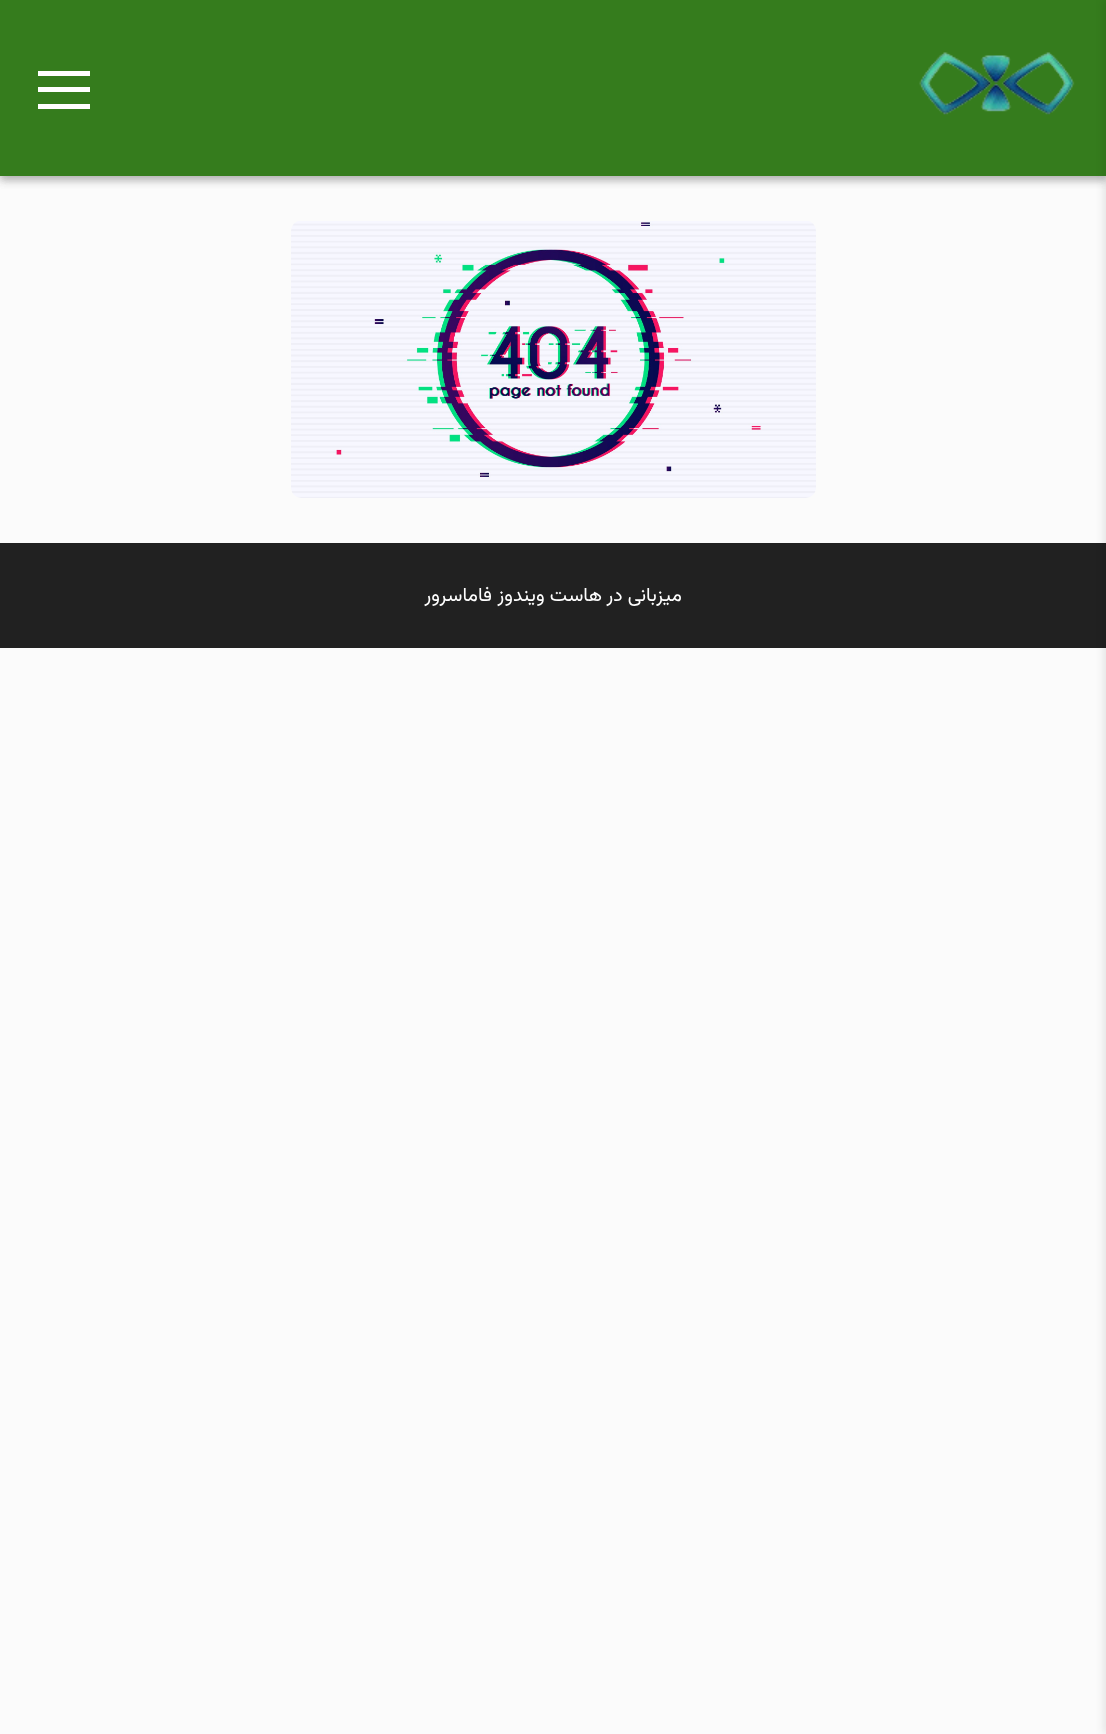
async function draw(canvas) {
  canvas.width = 1106
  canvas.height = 1734
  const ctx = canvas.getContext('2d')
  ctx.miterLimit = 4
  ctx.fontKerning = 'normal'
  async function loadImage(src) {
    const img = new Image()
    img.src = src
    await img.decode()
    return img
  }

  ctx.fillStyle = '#fbfbfb'
  ctx.fillRect(0, 0, 1106, 1734)
  ctx.fillStyle = '#28282833'
  ctx.filter = 'blur(4.5px)'
  ctx.beginPath()
  ctx.rect(0, 5, 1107, 175)
  ctx.fill()
  ctx.filter = 'none'
  ctx.filter = 'blur(4.5px)'
  ctx.beginPath()
  ctx.rect(0, 5, 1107, 175)
  ctx.fill()
  ctx.filter = 'none'
  ctx.fillStyle = '#357c1d'
  ctx.fillRect(0, 0, 1106, 176)
  ctx.drawImage(await loadImage('image0.png'), 919, 52, 156, 63)
  ctx.fillStyle = '#fff'
  ctx.fillRect(38, 71, 52, 5)
  ctx.fillRect(38, 87, 52, 5)
  ctx.fillRect(38, 104, 52, 5)
  ctx.fillStyle = '#212121'
  ctx.fillRect(0, 543, 1106, 105)
  ctx.fillStyle = '#0000001a'
  ctx.filter = 'blur(4px)'
  ctx.beginPath()
  ctx.rect(1104, 0, 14, 1734)
  ctx.fill()
  ctx.filter = 'none'
  ctx.drawImage(await loadImage('image1.png'), 291, 221, 525, 277)
  ctx.direction = 'rtl'
  ctx.font = '19.5px Vazirmatn'
  ctx.fillStyle = '#fff'
  ctx.fillText('میزبانی در', 682, 601)
  ctx.fillText('هاست ویندوز', 602, 601)
  ctx.fillText('فاماسرور', 492, 601)
}

draw(document.querySelector('canvas'))
